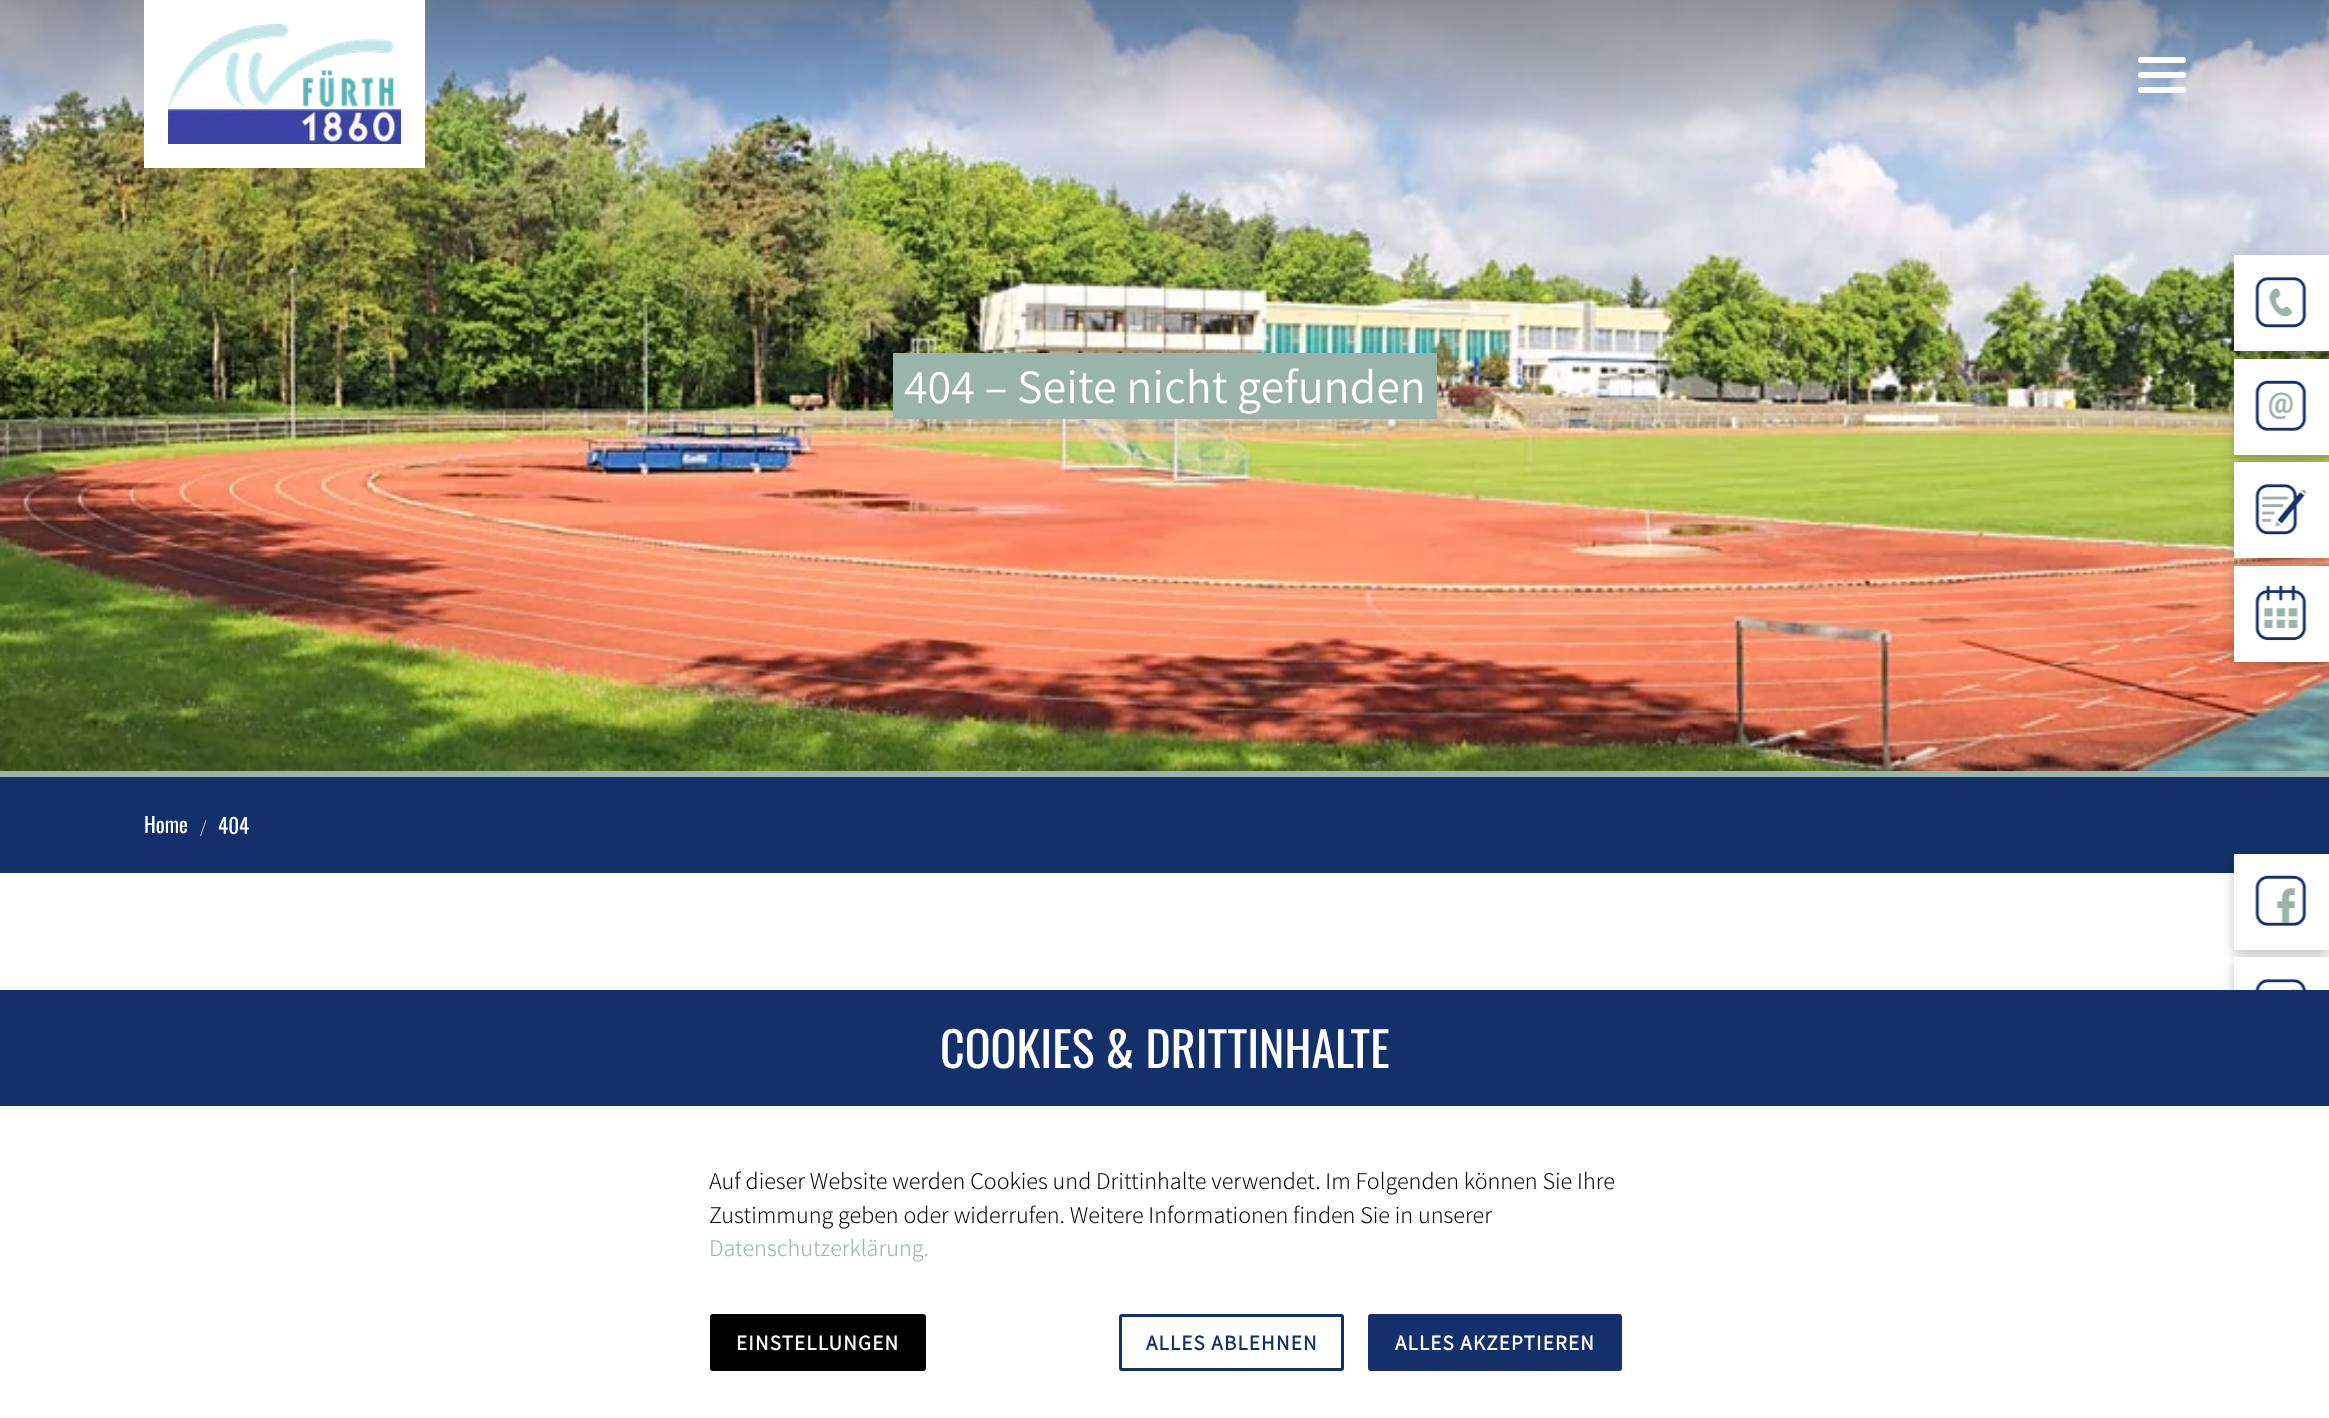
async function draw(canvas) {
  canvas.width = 2329
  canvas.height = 1418
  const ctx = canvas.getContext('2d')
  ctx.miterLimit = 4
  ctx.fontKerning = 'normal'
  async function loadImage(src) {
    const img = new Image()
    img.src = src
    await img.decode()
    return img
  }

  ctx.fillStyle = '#fff'
  ctx.fillRect(0, 0, 2329, 1418)
  ctx.drawImage(await loadImage('image1.png'), 0, 0, 2329, 771)
  ctx.fillRect(144, 0, 281, 168)
  ctx.drawImage(await loadImage('image0.png'), 168, 24, 233, 120)
  ctx.beginPath()
  ctx.roundRect(2138, 57, 48, 6, 3)
  ctx.fill()
  ctx.beginPath()
  ctx.roundRect(2138, 72, 48, 6, 3)
  ctx.fill()
  ctx.beginPath()
  ctx.roundRect(2138, 87, 48, 6, 3)
  ctx.fill()
  ctx.fillStyle = '#9ab3ab'
  ctx.fillRect(0, 771, 2329, 6)
  ctx.fillRect(893, 353, 544, 66)
  ctx.font = '200 48px Assistant'
  ctx.fillStyle = '#fff'
  ctx.fillText('404 – Seite nicht gefunden', 904, 403)
  ctx.fillStyle = '#0000003d'
  ctx.filter = 'blur(6px)'
  ctx.beginPath()
  ctx.rect(2234, 260, 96, 96)
  ctx.fill()
  ctx.filter = 'none'
  ctx.fillStyle = '#fff'
  ctx.fillRect(2234, 255, 95, 96)
  ctx.drawImage(await loadImage('image2.png'), 2255, 277, 52, 51)
  ctx.fillStyle = '#0000003d'
  ctx.filter = 'blur(6px)'
  ctx.beginPath()
  ctx.rect(2234, 363, 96, 96)
  ctx.fill()
  ctx.filter = 'none'
  ctx.fillStyle = '#fff'
  ctx.fillRect(2234, 359, 95, 96)
  ctx.drawImage(await loadImage('image3.png'), 2255, 380, 52, 51)
  ctx.fillStyle = '#0000003d'
  ctx.filter = 'blur(6px)'
  ctx.beginPath()
  ctx.rect(2234, 467, 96, 96)
  ctx.fill()
  ctx.filter = 'none'
  ctx.fillStyle = '#fff'
  ctx.fillRect(2234, 462, 95, 96)
  ctx.drawImage(await loadImage('image4.png'), 2255, 484, 52, 51)
  ctx.fillStyle = '#0000003d'
  ctx.filter = 'blur(6px)'
  ctx.beginPath()
  ctx.rect(2234, 570, 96, 96)
  ctx.fill()
  ctx.filter = 'none'
  ctx.fillStyle = '#fff'
  ctx.fillRect(2234, 566, 95, 96)
  ctx.drawImage(await loadImage('image5.png'), 2255, 585, 52, 56)
  ctx.fillStyle = '#14306b'
  ctx.fillRect(0, 777, 2329, 96)
  ctx.fillStyle = '#0000003d'
  ctx.filter = 'blur(6px)'
  ctx.beginPath()
  ctx.rect(2234, 858, 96, 96)
  ctx.fill()
  ctx.filter = 'none'
  ctx.fillStyle = '#fff'
  ctx.fillRect(2234, 854, 95, 96)
  ctx.drawImage(await loadImage('image6.png'), 2255, 875, 52, 51)
  ctx.fillStyle = '#0000003d'
  ctx.filter = 'blur(6px)'
  ctx.beginPath()
  ctx.rect(2234, 962, 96, 96)
  ctx.fill()
  ctx.filter = 'none'
  ctx.fillStyle = '#fff'
  ctx.fillRect(2234, 957, 95, 33)
  ctx.drawImage(await loadImage('image7.png'), 2255, 979, 52, 11)
  ctx.font = '21px Oswald'
  ctx.fillText('Home', 144, 833)
  ctx.font = '200 18px "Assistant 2"'
  ctx.fillStyle = '#e2e5ed'
  ctx.fillText('/', 200, 833)
  ctx.font = '21px Oswald'
  ctx.fillStyle = '#fff'
  ctx.fillText('404', 218, 834)
  ctx.fillStyle = '#14306b'
  ctx.fillRect(0, 990, 2329, 116)
  ctx.font = '48px Oswald'
  ctx.fillStyle = '#fff'
  ctx.fillText('COOKIES & DRITTINHALTE', 940, 1068)
  ctx.font = '200 24px "Assistant 2"'
  ctx.fillStyle = '#000'
  ctx.fillText('Auf dieser Website werden Cookies und Drittinhalte verwendet. Im Folgenden können Sie Ihre', 709, 1189)
  ctx.fillText('Zustimmung geben oder widerrufen. Weitere Informationen finden Sie in unserer', 709, 1223)
  ctx.fillStyle = '#9ab3ab'
  ctx.fillText('Datenschutzerklärung.', 709, 1256)
  ctx.fillStyle = '#000'
  ctx.beginPath()
  ctx.roundRect(711.5, 1315.5, 213, 54, 1.5)
  ctx.fill()
  ctx.strokeStyle = '#000'
  ctx.lineWidth = 3
  ctx.stroke()
  ctx.letterSpacing = '1.25px'
  ctx.font = 'bold 21px Assistant'
  ctx.fillStyle = '#fff'
  ctx.fillText('EINSTELLUNGEN', 736, 1350)
  ctx.beginPath()
  ctx.roundRect(1120.5, 1315.5, 222, 54, 1.5)
  ctx.strokeStyle = '#14306b'
  ctx.stroke()
  ctx.fillStyle = '#14306b'
  ctx.fillText('ALLES ABLEHNEN', 1146, 1350)
  ctx.beginPath()
  ctx.roundRect(1369.5, 1315.5, 251, 54, 1.5)
  ctx.fill()
  ctx.stroke()
  ctx.fillStyle = '#fff'
  ctx.fillText('ALLES AKZEPTIEREN', 1395, 1350)
}

draw(document.querySelector('canvas'))
